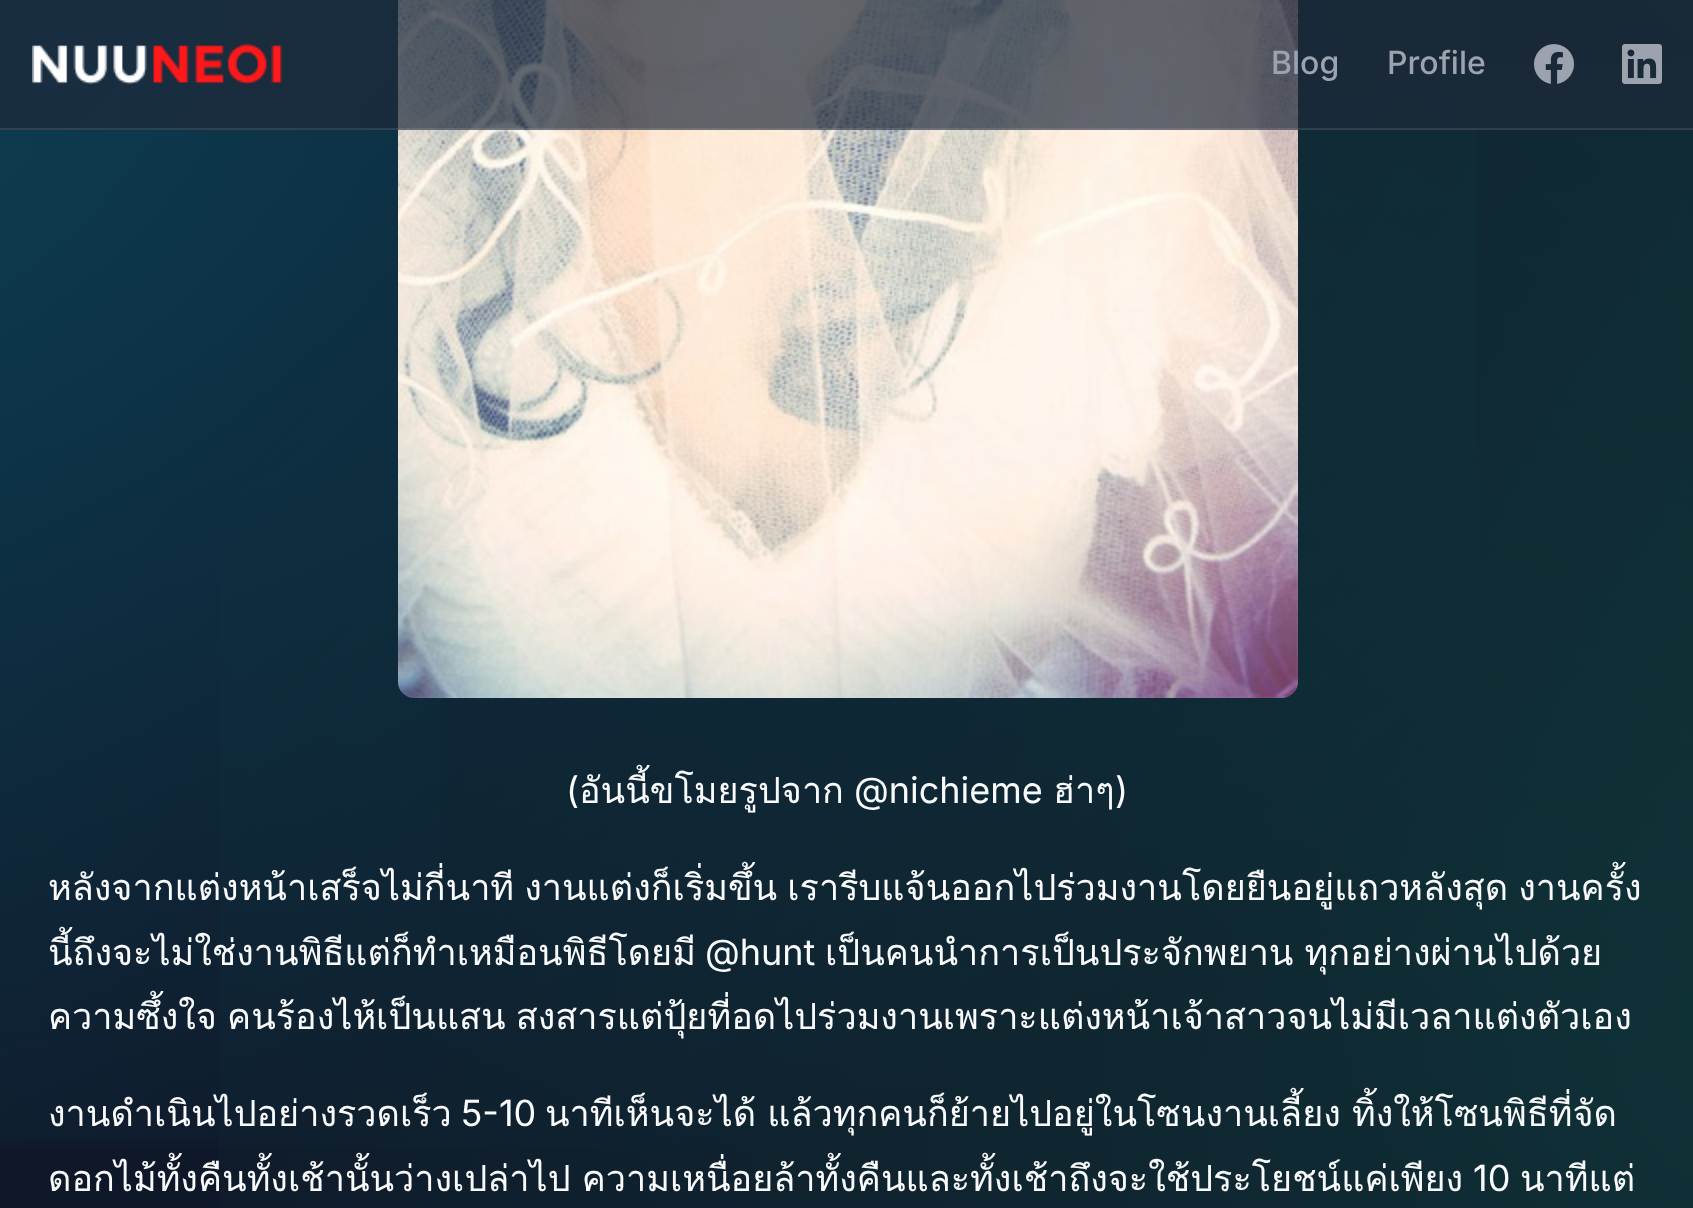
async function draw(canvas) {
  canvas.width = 1693
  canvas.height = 1208
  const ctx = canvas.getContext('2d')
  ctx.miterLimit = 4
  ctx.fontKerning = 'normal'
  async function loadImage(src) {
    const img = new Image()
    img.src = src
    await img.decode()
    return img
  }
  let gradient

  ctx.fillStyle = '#fff'
  ctx.fillRect(0, 0, 1693, 1208)
  gradient = ctx.createLinearGradient(1573, -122, 122, 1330)
  gradient.addColorStop(0, '#102832')
  gradient.addColorStop(0.5, '#0f1829')
  ctx.fillStyle = gradient
  ctx.fillRect(0, 0, 1693, 1208)
  gradient = ctx.createLinearGradient(122, -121, 1573, 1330)
  gradient.addColorStop(0, '#06b6d41a')
  gradient.addColorStop(0.5, '#06b6d400')
  ctx.fillStyle = gradient
  ctx.fillRect(0, 0, 441, 1139)
  gradient = ctx.createRadialGradient(1864, 1741.84, 0, 1864, 1741.84, 3833)
  gradient.addColorStop(0, '#10b98126')
  gradient.addColorStop(0.5, '#10b98100')
  ctx.fillStyle = gradient
  ctx.beginPath()
  ctx.rect(219, 61, 1474, 1147)
  ctx.save()
  ctx.clip()
  ctx.scale(1, 2392 / 3833)
  ctx.fillRect(0, 0, 1693, 1936)
  ctx.restore()
  gradient = ctx.createRadialGradient(-168, 193.89, 0, -168, 193.89, 3833)
  gradient.addColorStop(0, '#06b6d426')
  gradient.addColorStop(0.5, '#06b6d400')
  ctx.fillStyle = gradient
  ctx.beginPath()
  ctx.rect(0, 0, 1477, 1147)
  ctx.save()
  ctx.clip()
  ctx.scale(1, 2392 / 3833)
  ctx.fillRect(0, 0, 1693, 1936)
  ctx.restore()
  ctx.drawImage(await loadImage('image3.png'), 398, 0, 900, 698)
  ctx.fillStyle = '#1e293bb3'
  ctx.fillRect(0, 0, 1693, 130)
  ctx.fillStyle = '#ffffff1a'
  ctx.fillRect(0, 128, 1693, 2)
  ctx.drawImage(await loadImage('image0.png'), 32, 44, 251, 40)
  ctx.font = '500 32px Inter'
  ctx.fillStyle = '#9ca3af'
  ctx.fillText('Blog', 1271, 74)
  ctx.fillText('Profile', 1387, 74)
  ctx.drawImage(await loadImage('image1.png'), 1534, 44, 40, 40)
  ctx.drawImage(await loadImage('image2.png'), 1622, 44, 40, 40)
  ctx.font = '36px Inter'
  ctx.fillStyle = '#f9fafb'
  ctx.fillText('(', 566, 803)
  ctx.font = '36px Loma'
  ctx.fillText('อันนี้ขโมยรูปจาก', 579, 803)
  ctx.font = '36px Inter'
  ctx.fillText('@nichieme', 854, 803)
  ctx.font = '36px Loma'
  ctx.fillText('ฮ่าๆ', 1053, 803)
  ctx.font = '36px Inter'
  ctx.fillText(')', 1115, 803)
  ctx.wordSpacing = '-2px'
  ctx.font = '36px Loma'
  ctx.fillText('หลังจากแต่งหน้าเสร็จไม่กี่นาที งานแต่งก็เริ่มขึ้น เรารีบแจ้นออกไปร่วมงานโดยยืนอยู่แถวหลังสุด งานครั้ง', 48, 900)
  ctx.wordSpacing = '0px'
  ctx.fillText('นี้ถึงจะไม่ใช่งานพิธีแต่ก็ทำเหมือนพิธีโดยมี', 48, 965)
  ctx.font = '36px Inter'
  ctx.fillText('@hunt', 705, 965)
  ctx.wordSpacing = '-1px'
  ctx.font = '36px Loma'
  ctx.fillText('เป็นคนนำการเป็นประจักพยาน ทุกอย่างผ่านไปด้วย', 825, 965)
  ctx.wordSpacing = '-2px'
  ctx.fillText('ความซึ้งใจ คนร้องไห้เป็นแสน สงสารแต่ปุ้ยที่อดไปร่วมงานเพราะแต่งหน้าเจ้าสาวจนไม่มีเวลาแต่งตัวเอง', 48, 1029)
  ctx.wordSpacing = '0px'
  ctx.fillText('งานดำเนินไปอย่างรวดเร็ว', 48, 1126)
  ctx.font = '36px Inter'
  ctx.fillText('5-10', 461, 1126)
  ctx.wordSpacing = '-1px'
  ctx.font = '36px Loma'
  ctx.fillText('นาทีเห็นจะได้ แล้วทุกคนก็ย้ายไปอยู่ในโซนงานเลี้ยง ทิ้งให้โซนพิธีที่จัด', 545, 1126)
  ctx.fillText('ดอกไม้ทั้งคืนทั้งเช้านั้นว่างเปล่าไป ความเหนื่อยล้าทั้งคืนและทั้งเช้าถึงจะใช้ประโยชน์แค่เพียง', 48, 1191)
  ctx.wordSpacing = '0px'
  ctx.font = '36px Inter'
  ctx.fillText('10', 1473, 1191)
  ctx.font = '36px Loma'
  ctx.fillText('นาทีแต่', 1520, 1191)
}

draw(document.querySelector('canvas'))
